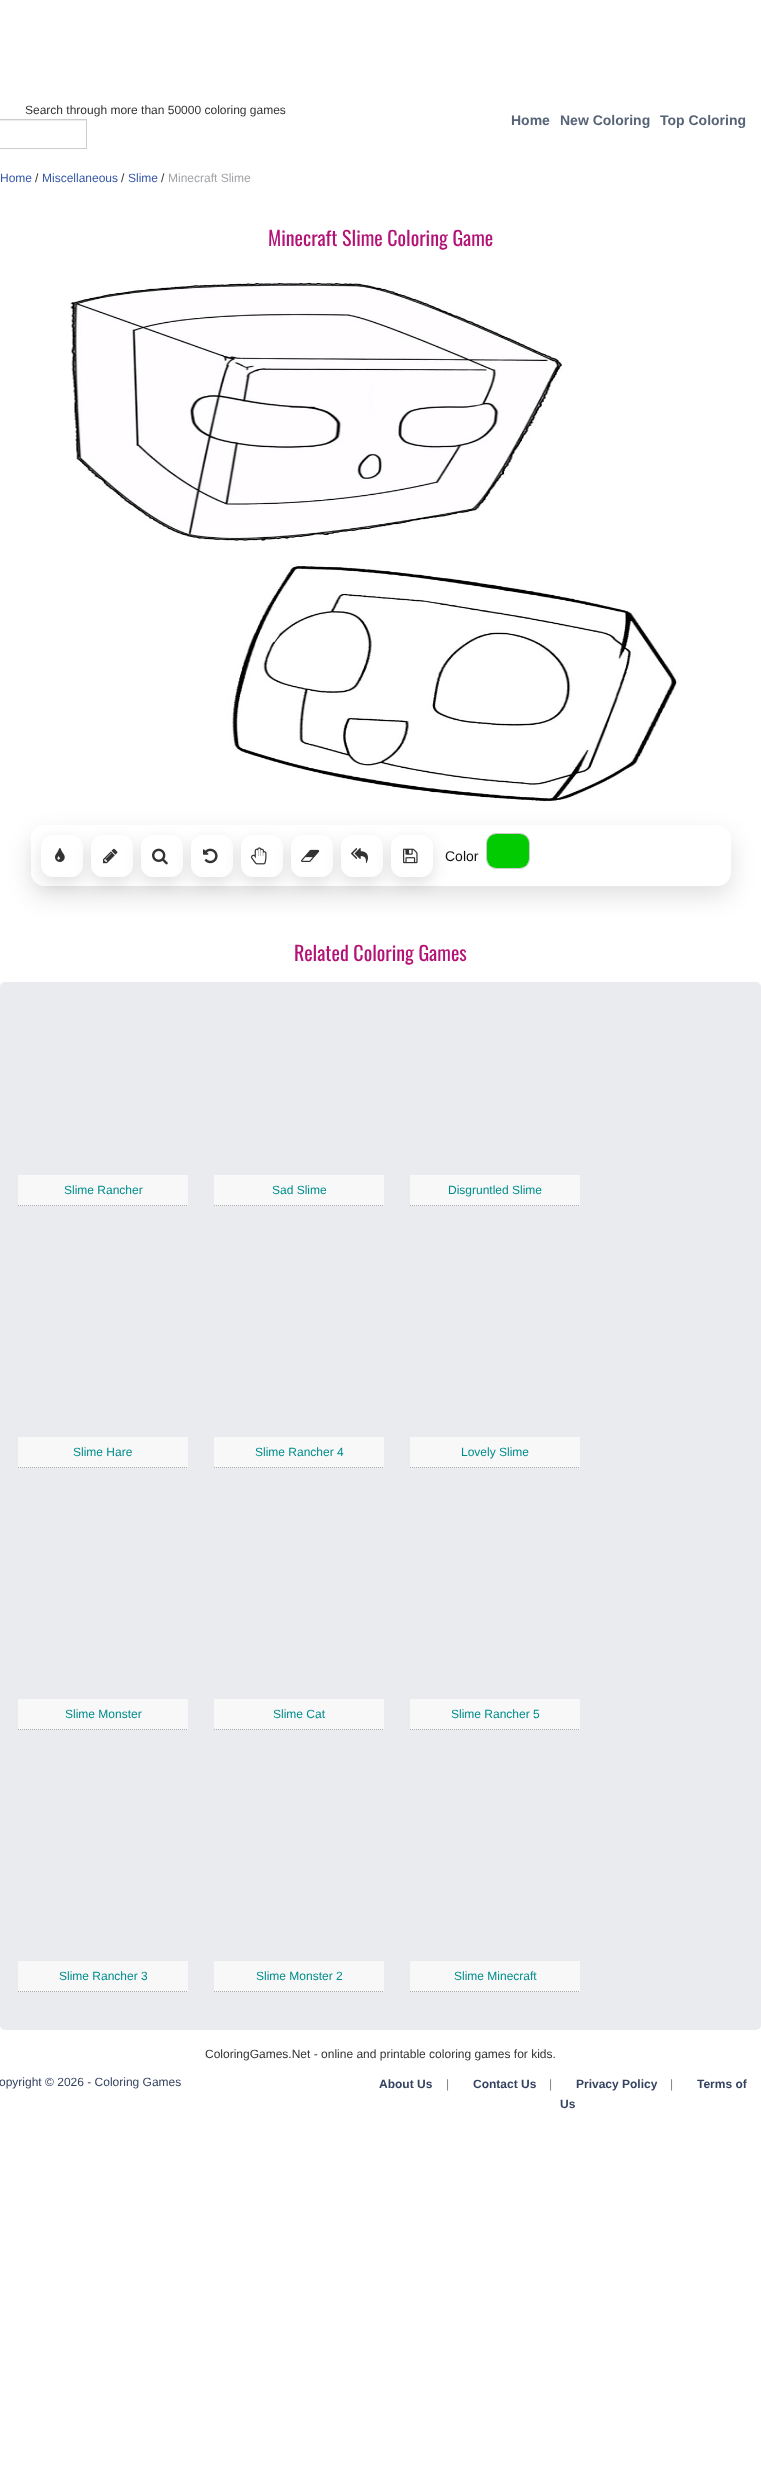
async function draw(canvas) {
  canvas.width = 761
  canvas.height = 2479
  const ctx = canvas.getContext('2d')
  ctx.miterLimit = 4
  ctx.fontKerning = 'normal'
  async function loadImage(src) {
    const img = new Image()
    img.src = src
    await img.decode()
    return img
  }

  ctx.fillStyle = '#fff'
  ctx.fillRect(0, 0, 761, 2479)
  ctx.font = '12px Liberation Sans'
  ctx.fillStyle = '#333'
  ctx.fillText('Search through more than 50000 coloring games', 25, 114)
  ctx.fillStyle = '#ececec'
  ctx.beginPath()
  ctx.moveTo(-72, 121)
  ctx.lineTo(86, 121)
  ctx.lineTo(86, 120)
  ctx.lineTo(-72, 120)
  ctx.bezierCurveTo(-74, 120, -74, 122, -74, 123)
  ctx.bezierCurveTo(-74, 122, -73, 121, -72, 121)
  ctx.closePath()
  ctx.fill()
  ctx.strokeStyle = '#ccc'
  ctx.strokeRect(-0.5, 119.5, 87, 29)
  ctx.font = 'bold 14px Liberation Sans'
  ctx.fillStyle = '#576376'
  ctx.fillText('Home', 511, 125)
  ctx.fillText('New Coloring', 560, 125)
  ctx.fillText('Top Coloring', 660, 125)
  ctx.font = '12px Liberation Sans'
  ctx.fillStyle = '#3657a7'
  ctx.fillText('Home', 0, 182)
  ctx.fillStyle = '#333'
  ctx.fillText('/', 35, 182)
  ctx.fillStyle = '#3657a7'
  ctx.fillText('Miscellaneous', 42, 182)
  ctx.fillStyle = '#333'
  ctx.fillText('/', 121, 182)
  ctx.fillStyle = '#3657a7'
  ctx.fillText('Slime', 128, 182)
  ctx.fillStyle = '#333'
  ctx.fillText('/', 161, 182)
  ctx.fillStyle = '#a1a3a6'
  ctx.fillText('Minecraft Slime', 168, 182)
  ctx.font = '20px Oswald'
  ctx.fillStyle = '#b41376'
  ctx.fillText('Minecraft Slime Coloring Game', 268, 246)
  ctx.drawImage(await loadImage('image0.png'), 70, 281, 609, 522)
  ctx.save()
  ctx.beginPath()
  ctx.moveTo(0, 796)
  ctx.lineTo(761, 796)
  ctx.lineTo(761, 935)
  ctx.lineTo(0, 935)
  ctx.closePath()
  ctx.moveTo(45, 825)
  ctx.lineTo(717, 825)
  ctx.bezierCurveTo(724.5, 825, 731, 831.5, 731, 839)
  ctx.lineTo(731, 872)
  ctx.bezierCurveTo(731, 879.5, 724.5, 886, 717, 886)
  ctx.lineTo(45, 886)
  ctx.bezierCurveTo(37.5, 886, 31, 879.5, 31, 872)
  ctx.lineTo(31, 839)
  ctx.bezierCurveTo(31, 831.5, 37.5, 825, 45, 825)
  ctx.closePath()
  ctx.clip('evenodd')
  ctx.fillStyle = '#0000001f'
  ctx.filter = 'blur(12.5px)'
  ctx.beginPath()
  ctx.roundRect(31, 835, 700, 61, 14)
  ctx.fill()
  ctx.filter = 'none'
  ctx.restore()
  ctx.fillStyle = '#ffffffeb'
  ctx.beginPath()
  ctx.roundRect(31, 825, 700, 61, 14)
  ctx.fill()
  ctx.fillStyle = '#0000001f'
  ctx.filter = 'blur(8px)'
  ctx.beginPath()
  ctx.roundRect(41, 841, 42, 42, 12)
  ctx.fill()
  ctx.filter = 'none'
  ctx.fillStyle = '#fff'
  ctx.beginPath()
  ctx.roundRect(41, 835, 42, 42, 12)
  ctx.fill()
  ctx.drawImage(await loadImage('image1.png'), 55, 848, 10, 14)
  ctx.fillStyle = '#0000001f'
  ctx.filter = 'blur(8px)'
  ctx.beginPath()
  ctx.roundRect(91, 841, 42, 42, 12)
  ctx.fill()
  ctx.filter = 'none'
  ctx.fillStyle = '#fff'
  ctx.beginPath()
  ctx.roundRect(91, 835, 42, 42, 12)
  ctx.fill()
  ctx.drawImage(await loadImage('image2.png'), 103, 848, 15, 16)
  ctx.fillStyle = '#0000001f'
  ctx.filter = 'blur(8px)'
  ctx.beginPath()
  ctx.roundRect(141, 841, 42, 42, 12)
  ctx.fill()
  ctx.filter = 'none'
  ctx.fillStyle = '#fff'
  ctx.beginPath()
  ctx.roundRect(141, 835, 42, 42, 12)
  ctx.fill()
  ctx.drawImage(await loadImage('image3.png'), 152, 848, 16, 17)
  ctx.fillStyle = '#0000001f'
  ctx.filter = 'blur(8px)'
  ctx.beginPath()
  ctx.roundRect(191, 841, 42, 42, 12)
  ctx.fill()
  ctx.filter = 'none'
  ctx.fillStyle = '#fff'
  ctx.beginPath()
  ctx.roundRect(191, 835, 42, 42, 12)
  ctx.fill()
  ctx.drawImage(await loadImage('image4.png'), 203, 848, 15, 16)
  ctx.fillStyle = '#0000001f'
  ctx.filter = 'blur(8px)'
  ctx.beginPath()
  ctx.roundRect(241, 841, 42, 42, 12)
  ctx.fill()
  ctx.filter = 'none'
  ctx.fillStyle = '#fff'
  ctx.beginPath()
  ctx.roundRect(241, 835, 42, 42, 12)
  ctx.fill()
  ctx.drawImage(await loadImage('image5.png'), 251, 847, 16, 18)
  ctx.fillStyle = '#0000001f'
  ctx.filter = 'blur(8px)'
  ctx.beginPath()
  ctx.roundRect(291, 841, 42, 42, 12)
  ctx.fill()
  ctx.filter = 'none'
  ctx.fillStyle = '#fff'
  ctx.beginPath()
  ctx.roundRect(291, 835, 42, 42, 12)
  ctx.fill()
  ctx.drawImage(await loadImage('image6.png'), 301, 849, 19, 13)
  ctx.fillStyle = '#0000001f'
  ctx.filter = 'blur(8px)'
  ctx.beginPath()
  ctx.roundRect(341, 841, 42, 42, 12)
  ctx.fill()
  ctx.filter = 'none'
  ctx.fillStyle = '#fff'
  ctx.beginPath()
  ctx.roundRect(341, 835, 42, 42, 12)
  ctx.fill()
  ctx.drawImage(await loadImage('image7.png'), 351, 848, 17, 16)
  ctx.fillStyle = '#0000001f'
  ctx.filter = 'blur(8px)'
  ctx.beginPath()
  ctx.roundRect(391, 841, 42, 42, 12)
  ctx.fill()
  ctx.filter = 'none'
  ctx.fillStyle = '#fff'
  ctx.beginPath()
  ctx.roundRect(391, 835, 42, 42, 12)
  ctx.fill()
  ctx.drawImage(await loadImage('image8.png'), 403, 848, 15, 16)
  ctx.font = '14px Liberation Sans'
  ctx.fillStyle = '#111'
  ctx.fillText('Color', 445, 861)
  ctx.fillStyle = '#ececec'
  ctx.beginPath()
  ctx.moveTo(496, 835)
  ctx.lineTo(516, 835)
  ctx.bezierCurveTo(527, 835, 529, 838, 529, 846)
  ctx.bezierCurveTo(529, 831, 519, 834, 508, 834)
  ctx.bezierCurveTo(496, 834, 487, 831, 487, 846)
  ctx.bezierCurveTo(487, 841, 488, 835, 496, 835)
  ctx.closePath()
  ctx.moveTo(529, 858)
  ctx.lineTo(529, 860)
  ctx.closePath()
  ctx.moveTo(487, 862)
  ctx.lineTo(487, 858)
  ctx.closePath()
  ctx.fill('evenodd')
  ctx.beginPath()
  ctx.roundRect(486.5, 833.5, 43, 35, 9.5)
  ctx.strokeStyle = '#00000033'
  ctx.stroke()
  ctx.fillStyle = '#03cb01'
  ctx.beginPath()
  ctx.roundRect(487, 834, 42, 34, 9)
  ctx.fill()
  ctx.font = '20px Oswald'
  ctx.fillStyle = '#b41376'
  ctx.fillText('Related Coloring Games', 294, 961)
  ctx.fillStyle = '#eaebee'
  ctx.beginPath()
  ctx.roundRect(0, 982, 761, 1048, 5)
  ctx.fill()
  ctx.fillStyle = '#f8f8f8'
  ctx.fillRect(18, 1175, 170, 31)
  ctx.beginPath()
  ctx.moveTo(18, 1205.5)
  ctx.lineTo(188, 1205.5)
  ctx.strokeStyle = '#a9a9a9'
  ctx.setLineDash([1, 1])
  ctx.stroke()
  ctx.font = '12px Liberation Sans'
  ctx.fillStyle = '#008c8c'
  ctx.fillText('Slime Rancher', 64, 1194)
  ctx.fillStyle = '#f8f8f8'
  ctx.fillRect(214, 1175, 170, 31)
  ctx.beginPath()
  ctx.moveTo(214, 1205.5)
  ctx.lineTo(384, 1205.5)
  ctx.stroke()
  ctx.fillStyle = '#008c8c'
  ctx.fillText('Sad Slime', 272, 1194)
  ctx.fillStyle = '#f8f8f8'
  ctx.fillRect(410, 1175, 170, 31)
  ctx.beginPath()
  ctx.moveTo(410, 1205.5)
  ctx.lineTo(580, 1205.5)
  ctx.stroke()
  ctx.fillStyle = '#008c8c'
  ctx.fillText('Disgruntled Slime', 448, 1194)
  ctx.fillStyle = '#f8f8f8'
  ctx.fillRect(18, 1437, 170, 31)
  ctx.beginPath()
  ctx.moveTo(18, 1467.5)
  ctx.lineTo(188, 1467.5)
  ctx.stroke()
  ctx.fillStyle = '#008c8c'
  ctx.fillText('Slime Hare', 73, 1456)
  ctx.fillStyle = '#f8f8f8'
  ctx.fillRect(214, 1437, 170, 31)
  ctx.beginPath()
  ctx.moveTo(214, 1467.5)
  ctx.lineTo(384, 1467.5)
  ctx.stroke()
  ctx.fillStyle = '#008c8c'
  ctx.fillText('Slime Rancher 4', 255, 1456)
  ctx.fillStyle = '#f8f8f8'
  ctx.fillRect(410, 1437, 170, 31)
  ctx.beginPath()
  ctx.moveTo(410, 1467.5)
  ctx.lineTo(580, 1467.5)
  ctx.stroke()
  ctx.fillStyle = '#008c8c'
  ctx.fillText('Lovely Slime', 461, 1456)
  ctx.fillStyle = '#f8f8f8'
  ctx.fillRect(18, 1699, 170, 31)
  ctx.beginPath()
  ctx.moveTo(18, 1729.5)
  ctx.lineTo(188, 1729.5)
  ctx.stroke()
  ctx.fillStyle = '#008c8c'
  ctx.fillText('Slime Monster', 65, 1718)
  ctx.fillStyle = '#f8f8f8'
  ctx.fillRect(214, 1699, 170, 31)
  ctx.beginPath()
  ctx.moveTo(214, 1729.5)
  ctx.lineTo(384, 1729.5)
  ctx.stroke()
  ctx.fillStyle = '#008c8c'
  ctx.fillText('Slime Cat', 273, 1718)
  ctx.fillStyle = '#f8f8f8'
  ctx.fillRect(410, 1699, 170, 31)
  ctx.beginPath()
  ctx.moveTo(410, 1729.5)
  ctx.lineTo(580, 1729.5)
  ctx.stroke()
  ctx.fillStyle = '#008c8c'
  ctx.fillText('Slime Rancher 5', 451, 1718)
  ctx.fillStyle = '#f8f8f8'
  ctx.fillRect(18, 1961, 170, 31)
  ctx.beginPath()
  ctx.moveTo(18, 1991.5)
  ctx.lineTo(188, 1991.5)
  ctx.stroke()
  ctx.fillStyle = '#008c8c'
  ctx.fillText('Slime Rancher 3', 59, 1980)
  ctx.fillStyle = '#f8f8f8'
  ctx.fillRect(214, 1961, 170, 31)
  ctx.beginPath()
  ctx.moveTo(214, 1991.5)
  ctx.lineTo(384, 1991.5)
  ctx.stroke()
  ctx.fillStyle = '#008c8c'
  ctx.fillText('Slime Monster 2', 256, 1980)
  ctx.fillStyle = '#f8f8f8'
  ctx.fillRect(410, 1961, 170, 31)
  ctx.beginPath()
  ctx.moveTo(410, 1991.5)
  ctx.lineTo(580, 1991.5)
  ctx.stroke()
  ctx.fillStyle = '#008c8c'
  ctx.fillText('Slime Minecraft', 454, 1980)
  ctx.fillStyle = '#333'
  ctx.fillText('ColoringGames.Net - online and printable coloring games for kids.', 205, 2058)
  ctx.fillStyle = '#354360'
  ctx.fillText('opyright © 2026 - Coloring Games', -1, 2086)
  ctx.font = 'bold 12px Liberation Sans'
  ctx.fillText('About Us', 379, 2088)
  ctx.font = '12px Liberation Sans'
  ctx.fillStyle = '#808080'
  ctx.fillText('|', 446, 2088)
  ctx.font = 'bold 12px Liberation Sans'
  ctx.fillStyle = '#354360'
  ctx.fillText('Contact Us', 473, 2088)
  ctx.font = '12px Liberation Sans'
  ctx.fillStyle = '#808080'
  ctx.fillText('|', 549, 2088)
  ctx.font = 'bold 12px Liberation Sans'
  ctx.fillStyle = '#354360'
  ctx.fillText('Privacy Policy', 576, 2088)
  ctx.font = '12px Liberation Sans'
  ctx.fillStyle = '#808080'
  ctx.fillText('|', 670, 2088)
  ctx.font = 'bold 12px Liberation Sans'
  ctx.fillStyle = '#354360'
  ctx.fillText('Terms of', 697, 2088)
  ctx.fillText('Us', 560, 2108)
}

draw(document.querySelector('canvas'))
